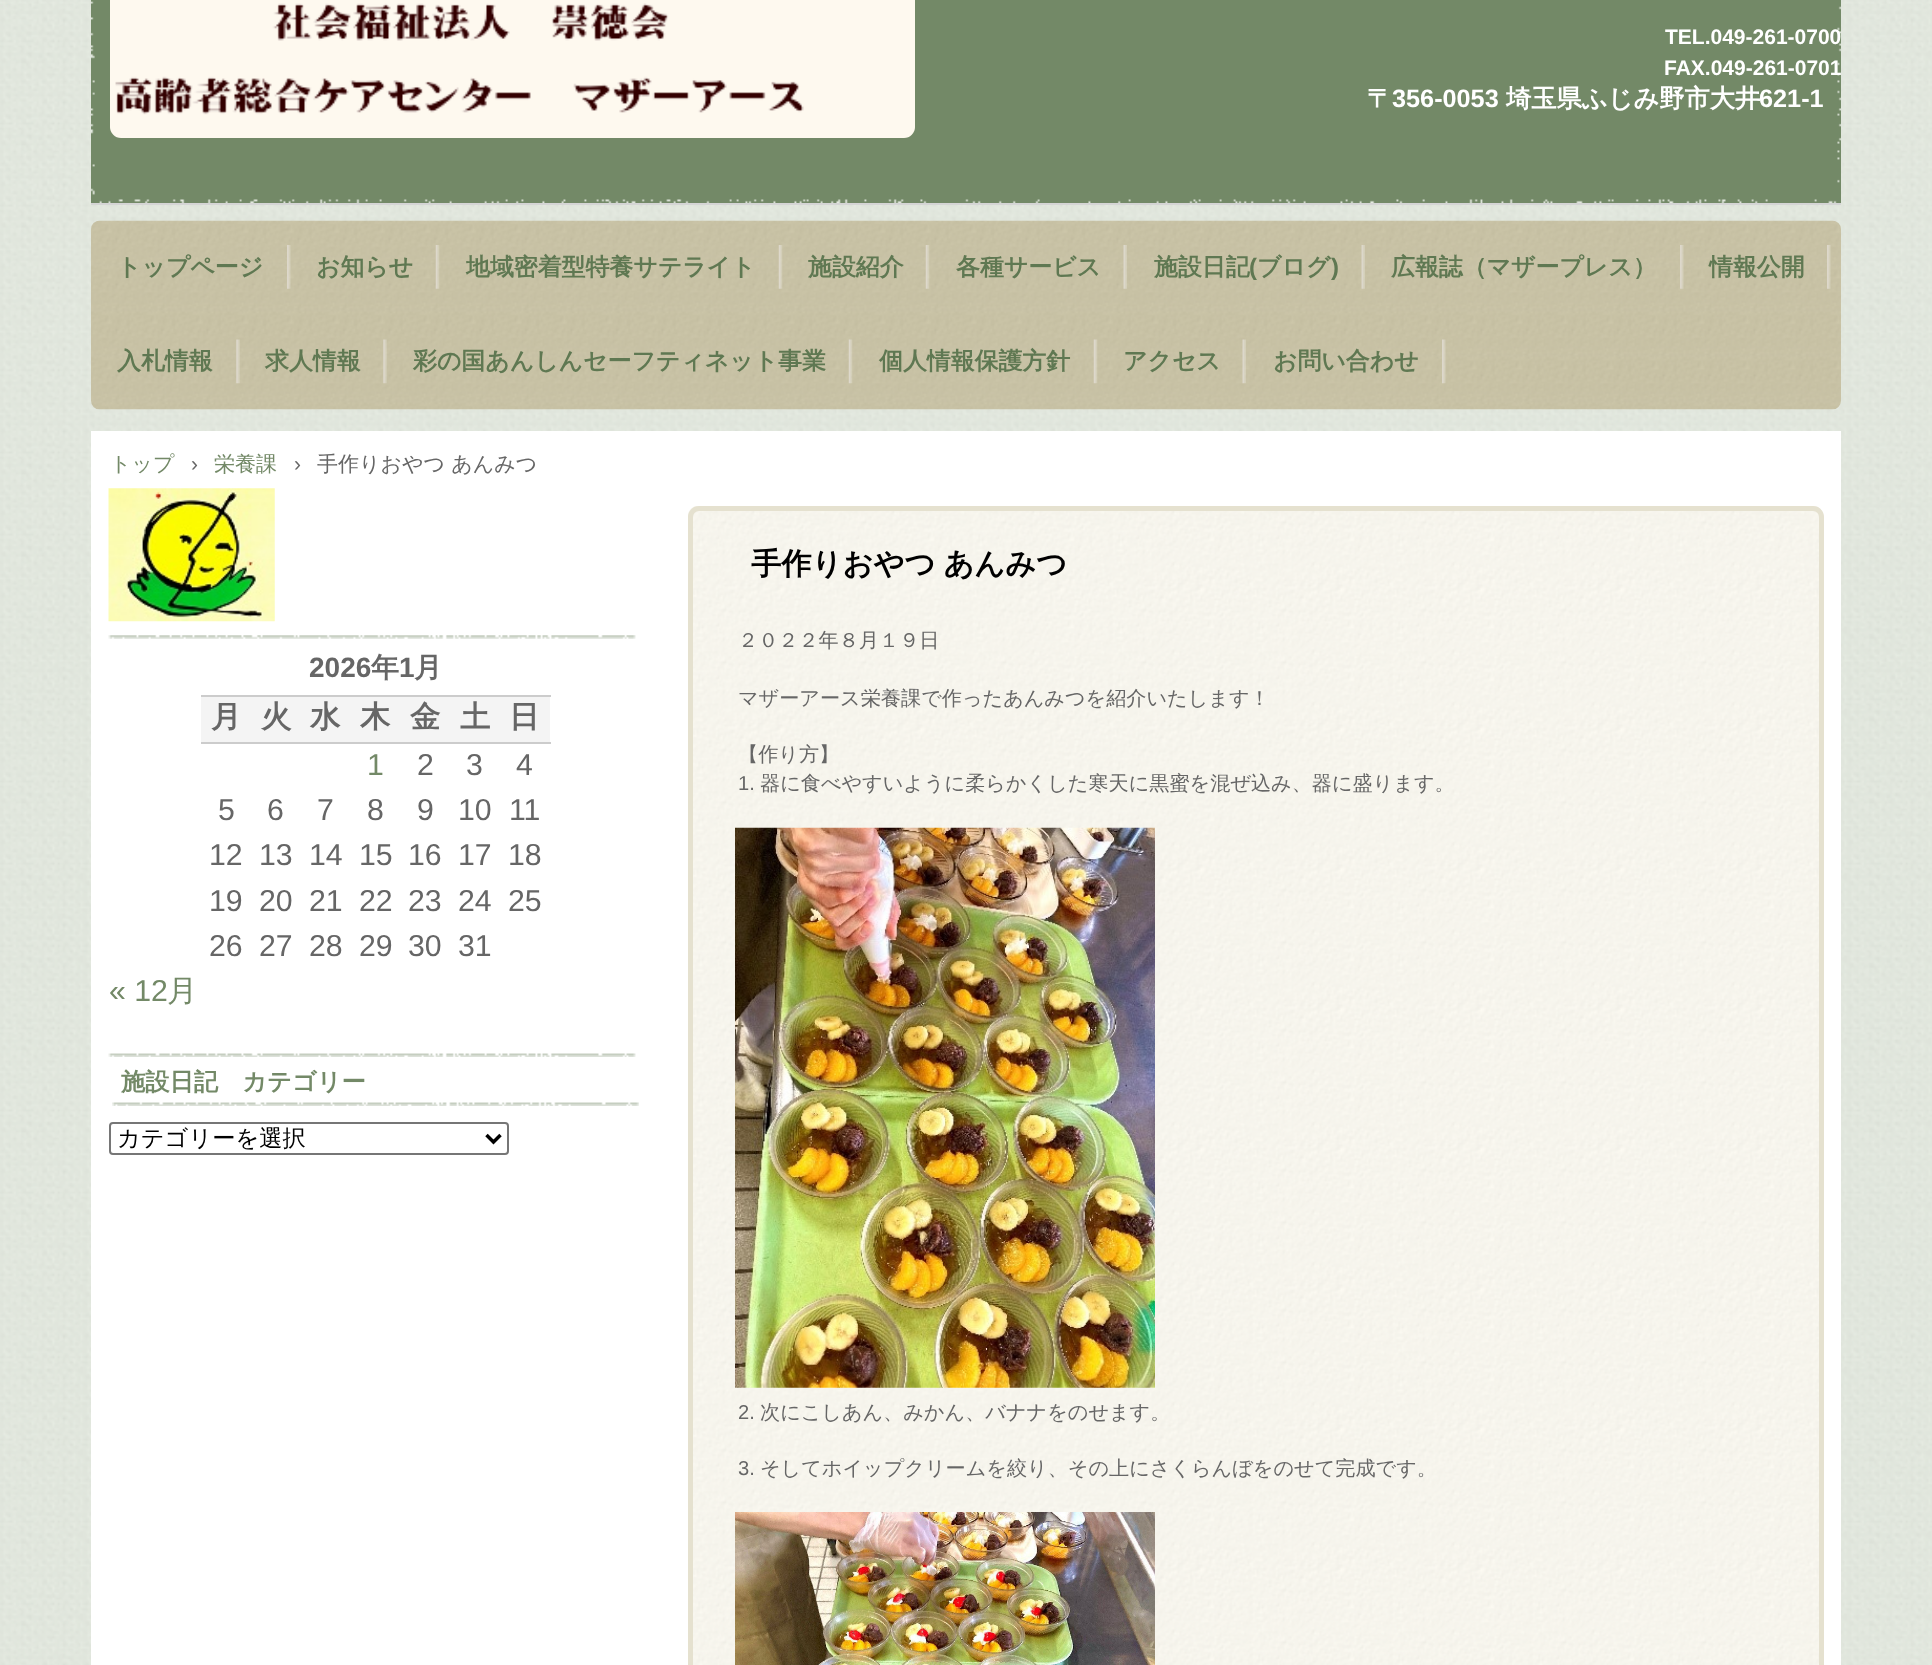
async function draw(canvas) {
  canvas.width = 1932
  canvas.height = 1665
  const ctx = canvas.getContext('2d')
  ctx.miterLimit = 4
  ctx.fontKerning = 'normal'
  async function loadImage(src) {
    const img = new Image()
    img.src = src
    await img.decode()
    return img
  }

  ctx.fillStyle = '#fff'
  ctx.fillRect(0, 0, 1932, 1665)
  ctx.drawImage(await loadImage('image0.png'), 0, 0, 1932, 1665)
  ctx.drawImage(await loadImage('image1.png'), 91, 0, 1750, 203)
  ctx.fillStyle = '#fef9ef'
  ctx.beginPath()
  ctx.roundRect(110, 0, 805, 138, [0, 0, 11, 11])
  ctx.fill()
  ctx.drawImage(await loadImage('image2.png'), 115, 3, 689, 112)
  ctx.font = 'bold 21px Liberation Sans'
  ctx.fillStyle = '#fff'
  ctx.fillText('TEL.049-261-0700', 1665, 44)
  ctx.fillText('FAX.049-261-0701', 1664, 75)
  ctx.font = 'bold 25.25px WenQuanYi Zen Hei'
  ctx.fillText('〒', 1367, 107)
  ctx.font = 'bold 25.25px Liberation Sans'
  ctx.fillText('356-0053', 1392, 107)
  ctx.font = 'bold 25.25px WenQuanYi Zen Hei'
  ctx.fillText('埼玉県ふじみ野市大井', 1506, 107)
  ctx.font = 'bold 25.25px Liberation Sans'
  ctx.fillText('621-1', 1759, 107)
  ctx.fillStyle = '#d5d5d5'
  ctx.fillRect(91, 203, 1750, 2)
  ctx.drawImage(await loadImage('image3.png'), 91, 220, 1750, 190)
  ctx.drawImage(await loadImage('image4.png'), 287, 245, 4, 44)
  ctx.font = 'bold 23.9px WenQuanYi Zen Hei'
  ctx.fillStyle = '#5f7852'
  ctx.fillText('トップページ', 117, 275)
  ctx.drawImage(await loadImage('image5.png'), 435, 245, 5, 44)
  ctx.fillText('お知らせ', 316, 275)
  ctx.drawImage(await loadImage('image6.png'), 778, 245, 5, 44)
  ctx.fillText('地域密着型特養サテライト', 466, 275)
  ctx.drawImage(await loadImage('image7.png'), 925, 245, 5, 44)
  ctx.fillText('施設紹介', 808, 275)
  ctx.drawImage(await loadImage('image8.png'), 1123, 245, 4, 44)
  ctx.fillText('各種サービス', 956, 275)
  ctx.drawImage(await loadImage('image9.png'), 1361, 245, 4, 44)
  ctx.fillText('施設日記', 1154, 275)
  ctx.font = 'bold 23.9px Liberation Sans'
  ctx.fillText('(', 1249, 275)
  ctx.font = 'bold 23.9px WenQuanYi Zen Hei'
  ctx.fillText('ブログ', 1257, 275)
  ctx.font = 'bold 23.9px Liberation Sans'
  ctx.fillText(')', 1331, 275)
  ctx.drawImage(await loadImage('image10.png'), 1680, 245, 4, 44)
  ctx.font = 'bold 23.9px WenQuanYi Zen Hei'
  ctx.fillText('広報誌（マザープレス）', 1391, 275)
  ctx.drawImage(await loadImage('image11.png'), 1827, 245, 4, 44)
  ctx.fillText('情報公開', 1709, 275)
  ctx.drawImage(await loadImage('image12.png'), 236, 339, 4, 45)
  ctx.fillText('入札情報', 117, 369)
  ctx.drawImage(await loadImage('image13.png'), 383, 339, 4, 45)
  ctx.fillText('求人情報', 265, 369)
  ctx.drawImage(await loadImage('image14.png'), 848, 339, 5, 45)
  ctx.fillText('彩の国あんしんセーフティネット事業', 413, 369)
  ctx.drawImage(await loadImage('image15.png'), 1093, 339, 5, 45)
  ctx.fillText('個人情報保護方針', 879, 369)
  ctx.drawImage(await loadImage('image16.png'), 1242, 339, 4, 45)
  ctx.fillText('アクセス', 1123, 369)
  ctx.drawImage(await loadImage('image17.png'), 1442, 339, 4, 45)
  ctx.fillText('お問い合わせ', 1273, 369)
  ctx.fillStyle = '#fff'
  ctx.fillRect(91, 431, 1750, 1234)
  ctx.font = '500 21px WenQuanYi Zen Hei'
  ctx.fillStyle = '#738967'
  ctx.fillText('トップ', 110, 471)
  ctx.font = '21px Liberation Sans'
  ctx.fillStyle = '#666'
  ctx.fillText('›', 191, 471)
  ctx.font = '500 21px WenQuanYi Zen Hei'
  ctx.fillStyle = '#738967'
  ctx.fillText('栄養課', 214, 471)
  ctx.font = '21px Liberation Sans'
  ctx.fillStyle = '#666'
  ctx.fillText('›', 294, 471)
  ctx.font = '500 21px WenQuanYi Zen Hei'
  ctx.fillText('手作りおやつ あんみつ', 317, 471)
  ctx.drawImage(await loadImage('image18.png'), 108, 488, 167, 134)
  ctx.drawImage(await loadImage('image19.png'), 108, 635, 528, 4)
  ctx.font = 'bold 28px Liberation Sans'
  ctx.fillText('2026', 309, 677)
  ctx.font = 'bold 28px WenQuanYi Zen Hei'
  ctx.fillText('年', 371, 677)
  ctx.font = 'bold 28px Liberation Sans'
  ctx.fillText('1', 399, 677)
  ctx.font = 'bold 28px WenQuanYi Zen Hei'
  ctx.fillText('月', 414, 677)
  ctx.fillStyle = '#f4f4f4'
  ctx.fillRect(201, 697, 349, 45)
  ctx.font = 'bold 30.25px WenQuanYi Zen Hei'
  ctx.fillStyle = '#666'
  ctx.fillText('月', 211, 727)
  ctx.fillText('火', 261, 727)
  ctx.fillText('水', 310, 727)
  ctx.fillText('木', 360, 727)
  ctx.fillText('金', 410, 727)
  ctx.fillText('土', 460, 727)
  ctx.fillStyle = '#ccc'
  ctx.fillRect(201, 695, 350, 2)
  ctx.fillRect(201, 742, 350, 2)
  ctx.fillStyle = '#666'
  ctx.fillText('日', 509, 727)
  ctx.font = '30.25px Liberation Sans'
  ctx.fillStyle = '#738967'
  ctx.fillText('1', 367, 775)
  ctx.fillStyle = '#666'
  ctx.fillText('2', 417, 775)
  ctx.fillText('3', 466, 775)
  ctx.fillText('4', 516, 775)
  ctx.fillText('5', 218, 820)
  ctx.fillText('6', 267, 820)
  ctx.fillText('7', 317, 820)
  ctx.fillText('8', 367, 820)
  ctx.fillText('9', 417, 820)
  ctx.fillText('10', 458, 820)
  ctx.fillText('11', 509, 820)
  ctx.fillText('12', 209, 865)
  ctx.fillText('13', 259, 865)
  ctx.fillText('14', 309, 865)
  ctx.fillText('15', 359, 865)
  ctx.fillText('16', 408, 865)
  ctx.fillText('17', 458, 865)
  ctx.fillText('18', 508, 865)
  ctx.fillText('19', 209, 911)
  ctx.fillText('20', 259, 911)
  ctx.fillText('21', 309, 911)
  ctx.fillText('22', 359, 911)
  ctx.fillText('23', 408, 911)
  ctx.fillText('24', 458, 911)
  ctx.fillText('25', 508, 911)
  ctx.fillText('26', 209, 956)
  ctx.fillText('27', 259, 956)
  ctx.fillText('28', 309, 956)
  ctx.fillText('29', 359, 956)
  ctx.fillText('30', 408, 956)
  ctx.fillText('31', 458, 956)
  ctx.fillStyle = '#738967'
  ctx.fillText('« 12', 109, 1001)
  ctx.font = '500 30.25px WenQuanYi Zen Hei'
  ctx.fillText('月', 167, 1001)
  ctx.drawImage(await loadImage('image20.png'), 108, 1053, 528, 4)
  ctx.drawImage(await loadImage('image21.png'), 112, 1102, 527, 4)
  ctx.font = 'bold 24.25px WenQuanYi Zen Hei'
  ctx.fillText('施設日記　カテゴリー', 121, 1090)
  ctx.beginPath()
  ctx.roundRect(110, 1123, 398, 31, 3)
  ctx.strokeStyle = '#767676'
  ctx.lineWidth = 2
  ctx.stroke()
  ctx.beginPath()
  ctx.moveTo(486.5, 1135)
  ctx.lineTo(493.5, 1142)
  ctx.lineTo(500.5, 1135)
  ctx.strokeStyle = '#000'
  ctx.lineWidth = 3.5
  ctx.stroke()
  ctx.font = '500 23.25px WenQuanYi Zen Hei'
  ctx.fillStyle = '#000'
  ctx.fillText('カテゴリーを選択', 117, 1146)
  ctx.drawImage(await loadImage('image22.png'), 688, 506, 1136, 1159)
  ctx.beginPath()
  ctx.roundRect(690.5, 508.5, 1131, 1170, 8.5)
  ctx.strokeStyle = '#e5e1cf'
  ctx.lineWidth = 5
  ctx.stroke()
  ctx.wordSpacing = '-1px'
  ctx.font = 'bold 30.25px WenQuanYi Zen Hei'
  ctx.fillText('手作りおやつ あんみつ', 751, 574)
  ctx.wordSpacing = '0px'
  ctx.font = '500 20.15px WenQuanYi Zen Hei'
  ctx.fillStyle = '#666'
  ctx.fillText('２０２２年８月１９日', 738, 647)
  ctx.fillText('マザーアース栄養課で作ったあんみつを紹介いたします！', 738, 705)
  ctx.fillText('【作り方】', 738, 761)
  ctx.font = '20.15px Liberation Sans'
  ctx.fillText('1.', 738, 790)
  ctx.font = '500 20.15px WenQuanYi Zen Hei'
  ctx.fillText('器に食べやすいように柔らかくした寒天に黒蜜を混ぜ込み、器に盛ります。', 760, 790)
  ctx.drawImage(await loadImage('image23.png'), 735, 827, 420, 561)
  ctx.font = '20.15px Liberation Sans'
  ctx.fillText('2.', 738, 1419)
  ctx.font = '500 20.15px WenQuanYi Zen Hei'
  ctx.fillText('次にこしあん、みかん、バナナをのせます。', 760, 1419)
  ctx.font = '20.15px Liberation Sans'
  ctx.fillText('3.', 738, 1475)
  ctx.font = '500 20.15px WenQuanYi Zen Hei'
  ctx.fillText('そしてホイップクリームを絞り、その上にさくらんぼをのせて完成です。', 760, 1475)
  ctx.drawImage(await loadImage('image24.png'), 735, 1512, 420, 153)
}

draw(document.querySelector('canvas'))
